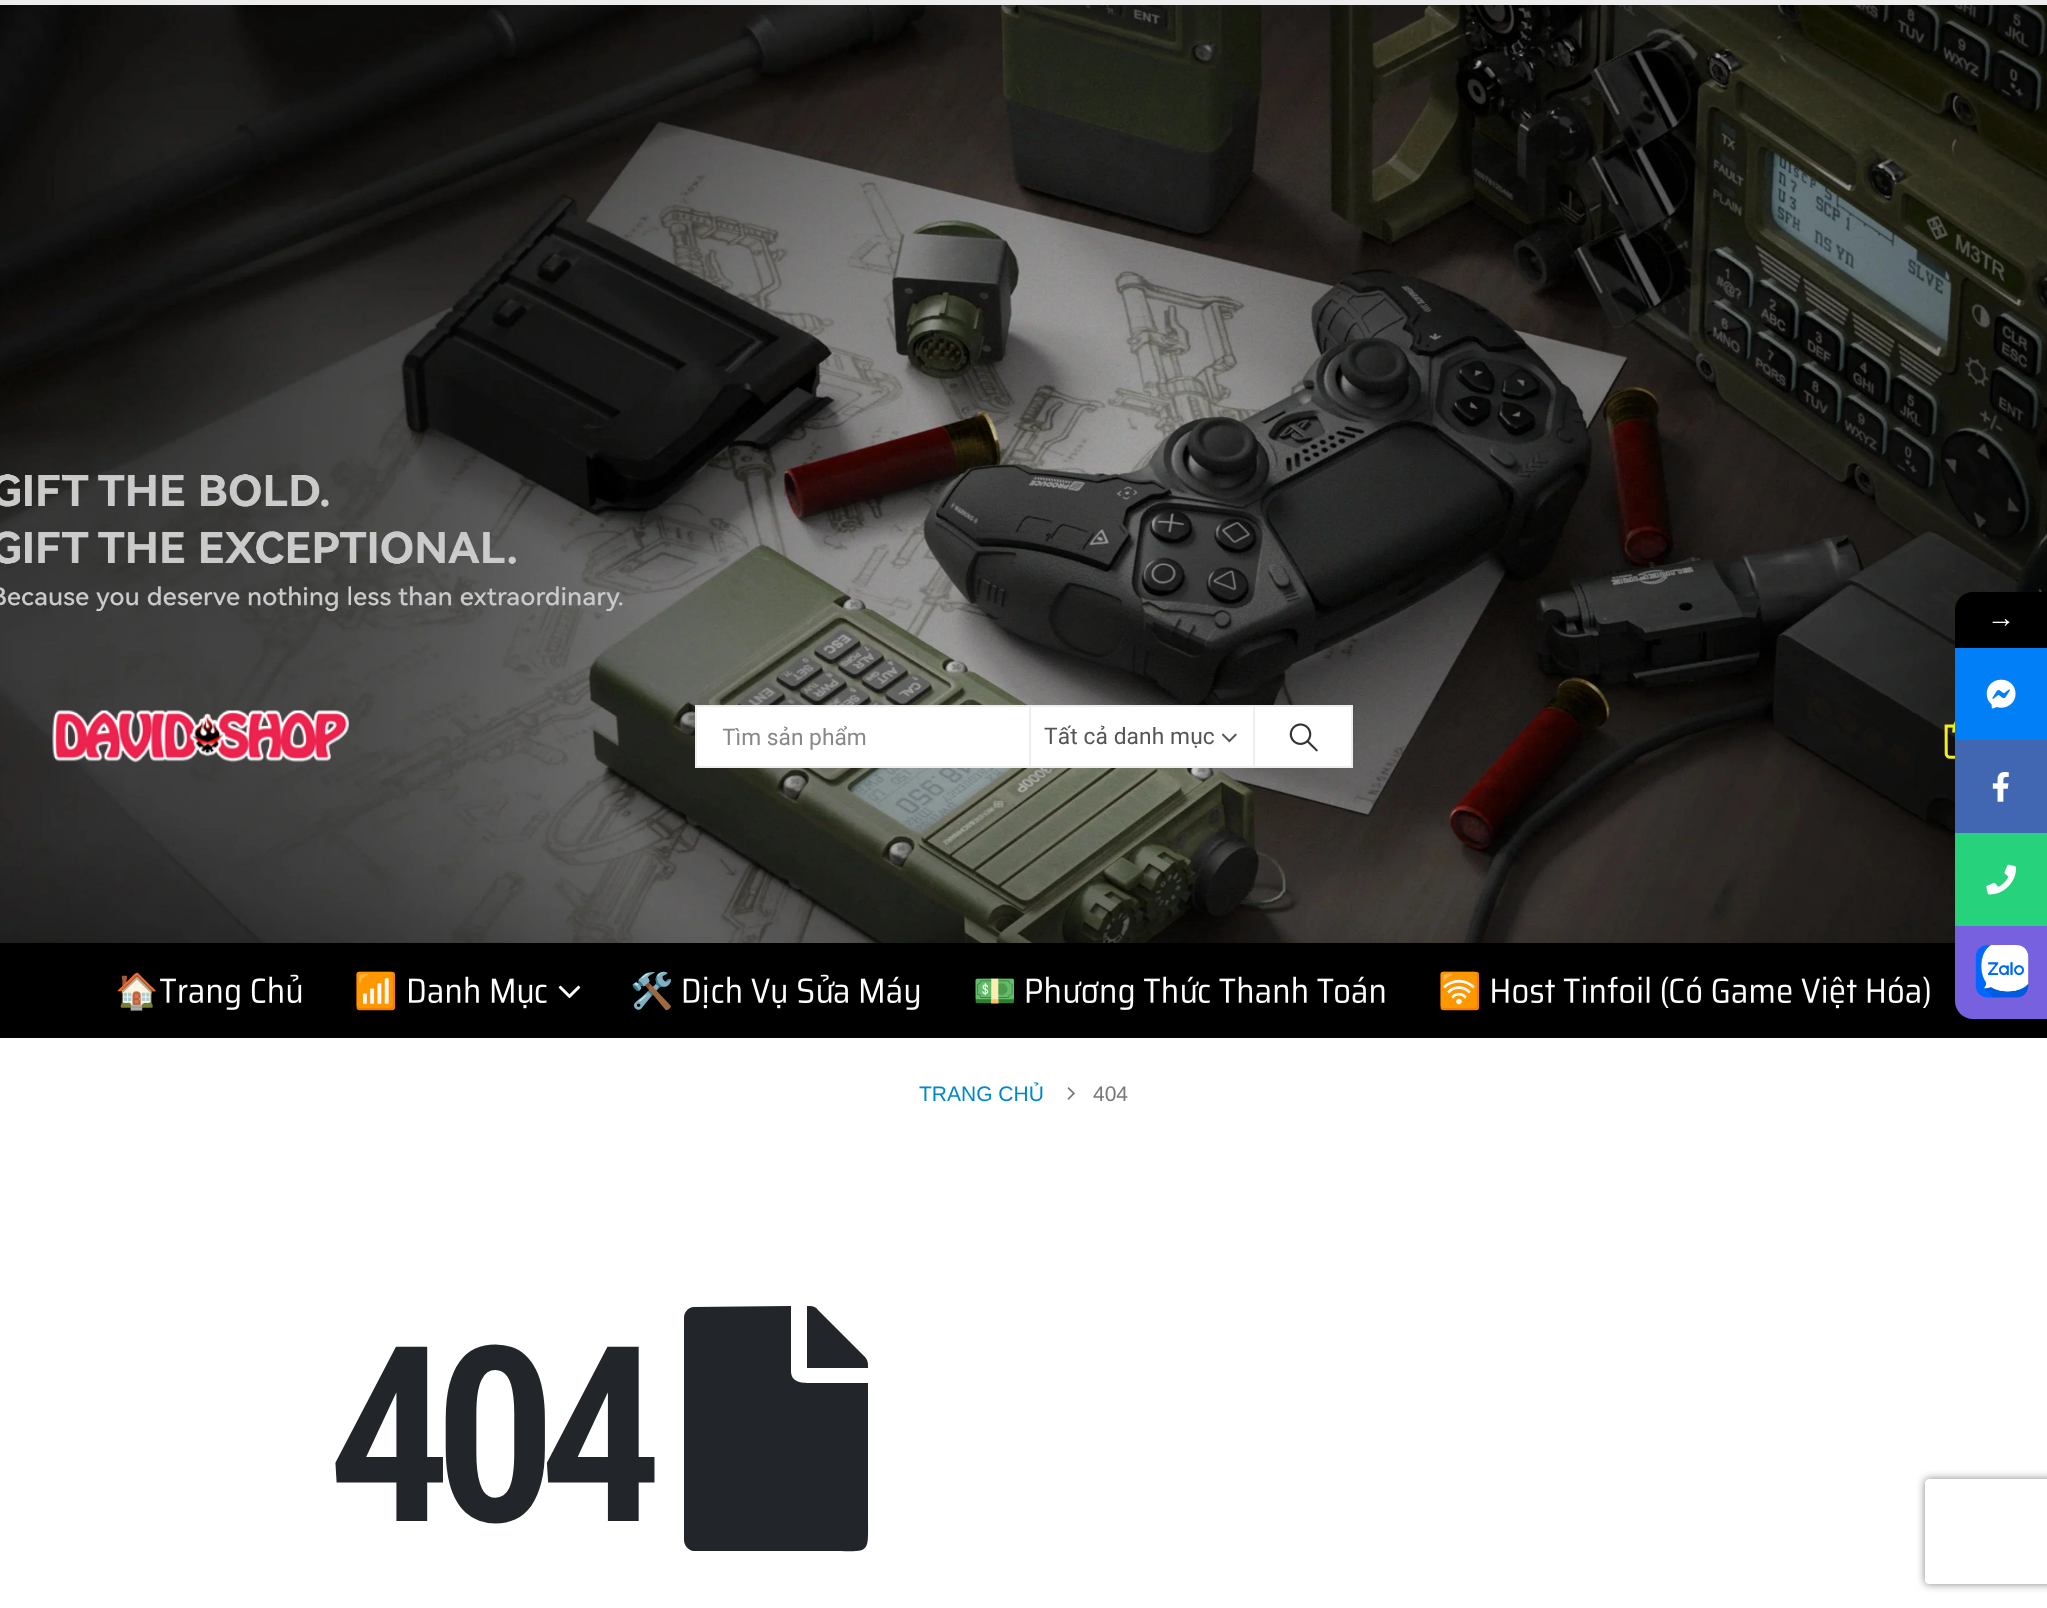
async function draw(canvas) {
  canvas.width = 2047
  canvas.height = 1608
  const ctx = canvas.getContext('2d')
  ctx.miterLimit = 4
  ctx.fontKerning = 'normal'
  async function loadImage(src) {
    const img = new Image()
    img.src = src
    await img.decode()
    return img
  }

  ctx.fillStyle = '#fff'
  ctx.fillRect(0, 0, 2047, 1608)
  ctx.drawImage(await loadImage('image4.png'), 0, 5, 2047, 938)
  ctx.fillStyle = '#000'
  ctx.beginPath()
  ctx.moveTo(1973, 592)
  ctx.lineTo(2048, 592)
  ctx.lineTo(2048, 648)
  ctx.lineTo(1955, 648)
  ctx.lineTo(1955, 610)
  ctx.bezierCurveTo(1955, 600, 1963, 592, 1973, 592)
  ctx.closePath()
  ctx.fill()
  ctx.font = '28px Liberation Serif'
  ctx.fillStyle = '#fff'
  ctx.fillText('→', 1987, 627)
  ctx.fillStyle = '#007ff7'
  ctx.fillRect(1955, 648, 92, 92)
  ctx.drawImage(await loadImage('image0.png'), 1986, 679, 30, 30)
  ctx.fillStyle = '#4267b2'
  ctx.fillRect(1955, 740, 92, 93)
  ctx.drawImage(await loadImage('image1.png'), 1992, 772, 17, 30)
  ctx.fillStyle = '#26d37c'
  ctx.fillRect(1955, 833, 92, 93)
  ctx.drawImage(await loadImage('image2.png'), 1986, 864, 31, 31)
  ctx.fillStyle = '#000'
  ctx.fillRect(0, 943, 2047, 95)
  ctx.fillStyle = '#7761df'
  ctx.beginPath()
  ctx.moveTo(1955, 926)
  ctx.lineTo(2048, 926)
  ctx.lineTo(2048, 1019)
  ctx.lineTo(1973, 1019)
  ctx.bezierCurveTo(1963, 1019, 1955, 1011, 1955, 1001)
  ctx.closePath()
  ctx.fill()
  ctx.drawImage(await loadImage('image3.png'), 1975, 945, 54, 53)
  ctx.fillStyle = '#ededed'
  ctx.fillRect(0, 0, 2047, 5)
  ctx.drawImage(await loadImage('image5.png'), 52, 710, 298, 53)
  ctx.fillStyle = '#fff'
  ctx.beginPath()
  ctx.rect(696, 706, 656, 61)
  ctx.fill()
  ctx.strokeStyle = '#eee'
  ctx.lineWidth = 2
  ctx.stroke()
  ctx.save()
  ctx.beginPath()
  ctx.rect(723, 725, 280, 26)
  ctx.clip()
  ctx.font = '22.75px Roboto'
  ctx.fillStyle = '#888'
  ctx.fillText('Tìm sản phẩm', 722, 745)
  ctx.restore()
  ctx.fillStyle = '#eee'
  ctx.fillRect(1253, 707, 2, 60)
  ctx.fillRect(1029, 707, 2, 60)
  ctx.letterSpacing = '0.1px'
  ctx.font = '22.75px Roboto'
  ctx.fillStyle = '#555'
  ctx.fillText('Tất cả danh mục', 1044, 744)
  ctx.drawImage(await loadImage('image6.png'), 1221, 733, 16, 10)
  ctx.drawImage(await loadImage('image7.png'), 1289, 723, 29, 29)
  ctx.drawImage(await loadImage('image8.png'), 1944, 721, 11, 38)
  ctx.letterSpacing = '0px'
  ctx.font = '35px Noto Color Emoji'
  ctx.fillStyle = '#fff'
  ctx.fillText('🏠', 115, 1003)
  ctx.drawImage(await loadImage('image9.png'), 160, 976, 123, 34)
  ctx.drawImage(await loadImage('image10.png'), 287, 974, 15, 29)
  ctx.fillText('📶', 354, 1003)
  ctx.drawImage(await loadImage('image11.png'), 409, 976, 105, 27)
  ctx.drawImage(await loadImage('image12.png'), 518, 984, 15, 25)
  ctx.drawImage(await loadImage('image13.png'), 535, 984, 12, 19)
  ctx.drawImage(await loadImage('image14.png'), 558, 985, 23, 14)
  ctx.fillText('🛠️', 630, 1003)
  ctx.drawImage(await loadImage('image15.png'), 683, 978, 17, 25)
  ctx.drawImage(await loadImage('image16.png'), 703, 976, 5, 33)
  ctx.drawImage(await loadImage('image17.png'), 712, 976, 58, 27)
  ctx.drawImage(await loadImage('image18.png'), 772, 984, 14, 25)
  ctx.drawImage(await loadImage('image19.png'), 798, 978, 16, 25)
  ctx.drawImage(await loadImage('image20.png'), 818, 974, 17, 29)
  ctx.drawImage(await loadImage('image21.png'), 834, 976, 86, 34)
  ctx.fillText('💵', 973, 1003)
  ctx.drawImage(await loadImage('image22.png'), 1026, 976, 34, 27)
  ctx.drawImage(await loadImage('image23.png'), 1064, 981, 35, 22)
  ctx.drawImage(await loadImage('image24.png'), 1101, 976, 76, 34)
  ctx.drawImage(await loadImage('image25.png'), 1182, 976, 17, 27)
  ctx.drawImage(await loadImage('image26.png'), 1198, 976, 187, 27)
  ctx.fillText('🛜', 1438, 1003)
  ctx.drawImage(await loadImage('image27.png'), 1492, 976, 335, 32)
  ctx.drawImage(await loadImage('image28.png'), 1830, 976, 15, 33)
  ctx.drawImage(await loadImage('image29.png'), 1847, 976, 83, 32)
  ctx.font = '21px Liberation Sans'
  ctx.fillStyle = '#08c'
  ctx.fillText('TRANG CHỦ', 919, 1101)
  ctx.drawImage(await loadImage('image30.png'), 1067, 1087, 8, 13)
  ctx.fillStyle = '#777'
  ctx.fillText('404', 1093, 1101)
  ctx.letterSpacing = '-17.5px'
  ctx.font = '600 245px Roboto Condensed'
  ctx.fillStyle = '#222529'
  ctx.fillText('404', 328, 1521)
  ctx.beginPath()
  ctx.moveTo(791, 1371)
  ctx.bezierCurveTo(791, 1384, 805, 1383, 814, 1383)
  ctx.lineTo(868, 1383)
  ctx.lineTo(868, 1514)
  ctx.bezierCurveTo(868, 1556, 872, 1551, 830, 1551)
  ctx.lineTo(693, 1551)
  ctx.bezierCurveTo(688, 1550, 684, 1545, 684, 1540)
  ctx.lineTo(684, 1318)
  ctx.bezierCurveTo(684, 1312, 688, 1308, 693, 1307)
  ctx.lineTo(791, 1306)
  ctx.closePath()
  ctx.moveTo(868, 1365)
  ctx.lineTo(868, 1368)
  ctx.lineTo(807, 1368)
  ctx.lineTo(807, 1306)
  ctx.lineTo(810, 1306)
  ctx.bezierCurveTo(813, 1306, 816, 1307, 818, 1310)
  ctx.lineTo(865, 1357)
  ctx.bezierCurveTo(867, 1359, 868, 1362, 868, 1365)
  ctx.closePath()
  ctx.fill()
  ctx.save()
  ctx.beginPath()
  ctx.moveTo(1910, 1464)
  ctx.lineTo(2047, 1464)
  ctx.lineTo(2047, 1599)
  ctx.lineTo(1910, 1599)
  ctx.closePath()
  ctx.moveTo(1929, 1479)
  ctx.lineTo(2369, 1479)
  ctx.bezierCurveTo(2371, 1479, 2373, 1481, 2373, 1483)
  ctx.lineTo(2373, 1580)
  ctx.bezierCurveTo(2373, 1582, 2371, 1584, 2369, 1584)
  ctx.lineTo(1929, 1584)
  ctx.bezierCurveTo(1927, 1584, 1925, 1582, 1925, 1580)
  ctx.lineTo(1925, 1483)
  ctx.bezierCurveTo(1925, 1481, 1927, 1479, 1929, 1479)
  ctx.closePath()
  ctx.clip('evenodd')
  ctx.fillStyle = '#808080'
  ctx.filter = 'blur(4.5px)'
  ctx.beginPath()
  ctx.roundRect(1925, 1479, 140, 105, 4)
  ctx.fill()
  ctx.filter = 'none'
  ctx.restore()
}

draw(document.querySelector('canvas'))
